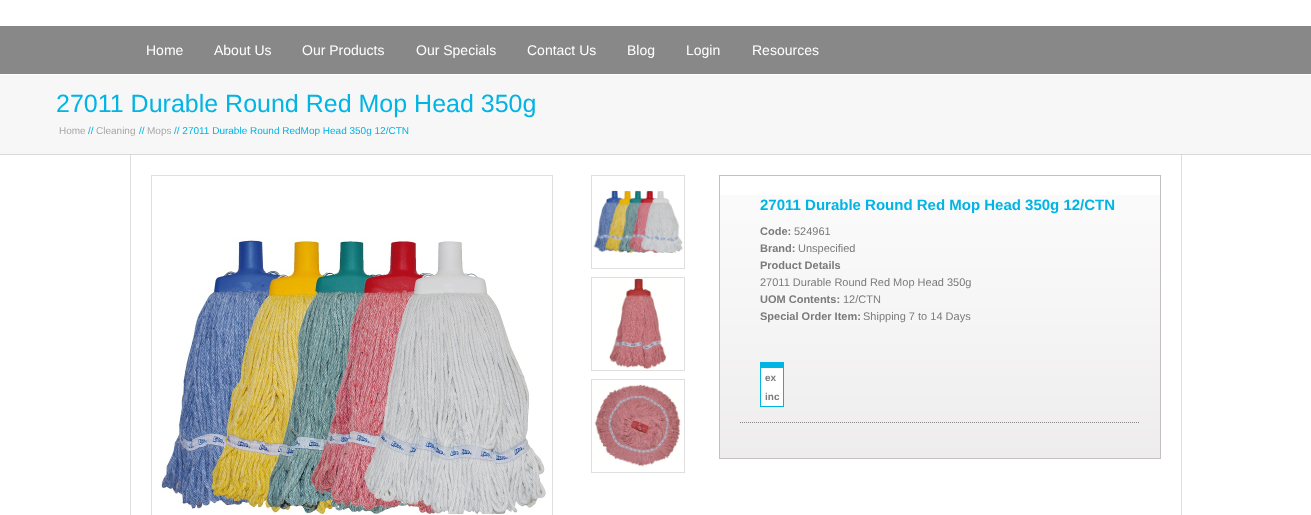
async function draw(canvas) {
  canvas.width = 1311
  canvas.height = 515
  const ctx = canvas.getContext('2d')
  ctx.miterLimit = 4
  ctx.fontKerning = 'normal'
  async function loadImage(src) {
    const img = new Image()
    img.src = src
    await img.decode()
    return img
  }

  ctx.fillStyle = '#fff'
  ctx.fillRect(0, 0, 1311, 515)
  ctx.fillStyle = '#888'
  ctx.fillRect(0, 26, 1311, 48)
  ctx.font = '14px Liberation Sans'
  ctx.fillStyle = '#fff'
  ctx.fillText('Home', 146, 55)
  ctx.fillText('About Us', 214, 55)
  ctx.fillText('Our Products', 302, 55)
  ctx.fillText('Our Specials', 416, 55)
  ctx.fillText('Contact Us', 527, 55)
  ctx.fillText('Blog', 627, 55)
  ctx.fillText('Login', 686, 55)
  ctx.fillText('Resources', 752, 55)
  ctx.fillStyle = '#f7f7f7'
  ctx.fillRect(0, 75, 1311, 79)
  ctx.fillStyle = '#d9d9d9'
  ctx.fillRect(0, 154, 1311, 1)
  ctx.font = '25px Liberation Sans'
  ctx.fillStyle = '#00b4e4'
  ctx.fillText('27011 Durable Round Red Mop Head 350g', 56, 112)
  ctx.font = '10px Liberation Sans'
  ctx.fillStyle = '#aaa6a6'
  ctx.fillText('Home', 59, 134)
  ctx.fillStyle = '#00b4e4'
  ctx.fillText('//', 88, 134)
  ctx.fillStyle = '#aaa6a6'
  ctx.fillText('Cleaning', 96, 134)
  ctx.fillStyle = '#00b4e4'
  ctx.fillText('//', 139, 134)
  ctx.fillStyle = '#aaa6a6'
  ctx.fillText('Mops', 147, 134)
  ctx.fillStyle = '#00b4e4'
  ctx.fillText('// 27011 Durable Round RedMop Head 350g 12/CTN', 174, 134)
  ctx.fillStyle = '#dfdfdf'
  ctx.fillRect(1181, 155, 1, 360)
  ctx.fillRect(130, 155, 1, 360)
  ctx.strokeStyle = '#dfdfdf'
  ctx.strokeRect(151.5, 175.5, 401, 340)
  ctx.drawImage(await loadImage('image0.png'), 160, 237, 386, 277)
  ctx.strokeRect(591.5, 175.5, 93, 93)
  ctx.drawImage(await loadImage('image1.png'), 593, 190, 90, 63)
  ctx.strokeRect(591.5, 277.5, 93, 93)
  ctx.drawImage(await loadImage('image2.png'), 609, 278, 58, 92)
  ctx.strokeRect(591.5, 379.5, 93, 93)
  ctx.drawImage(await loadImage('image3.png'), 594, 384, 87, 83)
  ctx.drawImage(await loadImage('image4.png'), 720, 195, 440, 263)
  ctx.strokeStyle = '#c4c0c0'
  ctx.strokeRect(719.5, 175.5, 441, 283)
  ctx.font = 'bold 15px Liberation Sans'
  ctx.fillStyle = '#00b4e4'
  ctx.fillText('27011 Durable Round Red Mop Head 350g 12/CTN', 760, 210)
  ctx.font = 'bold 11px Liberation Sans'
  ctx.fillStyle = '#7a7a7c'
  ctx.fillText('Code:', 760, 235)
  ctx.font = '11px Liberation Sans'
  ctx.fillText('524961', 794, 235)
  ctx.font = 'bold 11px Liberation Sans'
  ctx.fillText('Brand:', 760, 252)
  ctx.font = '11px Liberation Sans'
  ctx.fillText('Unspecified', 798, 252)
  ctx.font = 'bold 11px Liberation Sans'
  ctx.fillText('Product Details', 760, 269)
  ctx.font = '11px Liberation Sans'
  ctx.fillText('27011 Durable Round Red Mop Head 350g', 760, 286)
  ctx.font = 'bold 11px Liberation Sans'
  ctx.fillText('UOM Contents:', 760, 303)
  ctx.font = '11px Liberation Sans'
  ctx.fillText('12/CTN', 843, 303)
  ctx.font = 'bold 11px Liberation Sans'
  ctx.fillText('Special Order Item:', 760, 320)
  ctx.font = '11px Liberation Sans'
  ctx.fillText('Shipping 7 to 14 Days', 863, 320)
  ctx.fillStyle = '#00b4e4'
  ctx.fillRect(760, 362, 24, 1)
  ctx.fillRect(783, 362, 1, 45)
  ctx.fillRect(760, 406, 24, 1)
  ctx.fillRect(760, 363, 23, 5)
  ctx.fillRect(760, 362, 1, 45)
  ctx.fillStyle = '#fff'
  ctx.fillRect(761, 368, 22, 38)
  ctx.font = 'bold 10px Liberation Sans'
  ctx.fillStyle = '#7a7a7c'
  ctx.fillText('ex', 765, 381)
  ctx.fillText('inc', 765, 400)
  ctx.beginPath()
  ctx.moveTo(740, 422.5)
  ctx.lineTo(1140, 422.5)
  ctx.strokeStyle = '#868688'
  ctx.setLineDash([1, 1])
  ctx.stroke()
}

draw(document.querySelector('canvas'))
